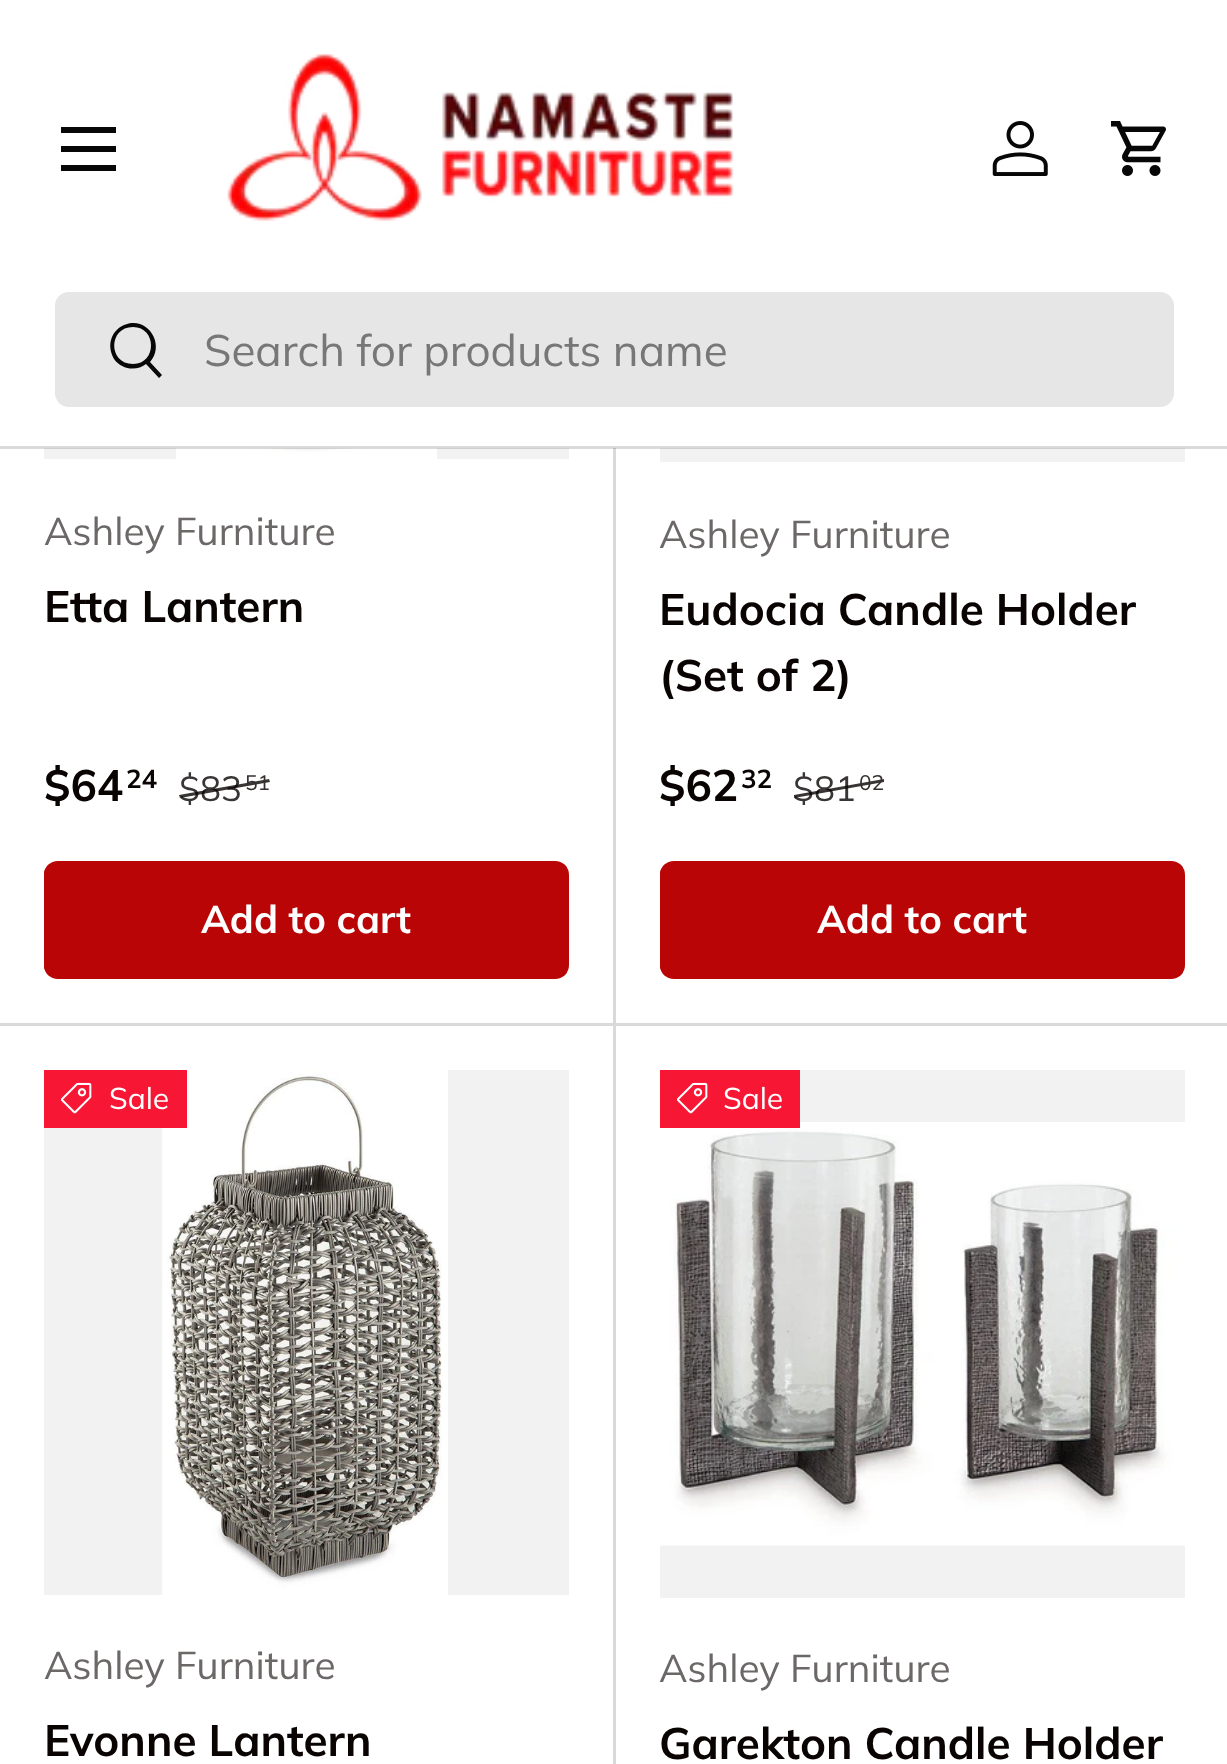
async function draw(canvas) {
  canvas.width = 1227
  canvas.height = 1764
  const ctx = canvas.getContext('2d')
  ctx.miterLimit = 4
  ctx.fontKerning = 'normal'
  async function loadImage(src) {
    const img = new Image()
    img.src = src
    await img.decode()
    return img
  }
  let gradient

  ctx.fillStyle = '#fff'
  ctx.fillRect(0, 0, 1227, 1764)
  ctx.fillStyle = '#dad9d9'
  ctx.beginPath()
  ctx.moveTo(616, -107)
  ctx.lineTo(616, 1026)
  ctx.lineTo(613, 1023)
  ctx.lineTo(613, -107)
  ctx.closePath()
  ctx.fill()
  ctx.fillStyle = '#fff'
  ctx.fillRect(613, 0, 3, 448)
  ctx.fillStyle = '#f2f2f2'
  ctx.fillRect(44, 448, 525, 11)
  ctx.drawImage(await loadImage('image3.png'), 176, 448, 261, 11)
  ctx.fillRect(660, 448, 525, 14)
  ctx.fillStyle = '#07070726'
  ctx.fillRect(0, 446, 1227, 3)
  ctx.fillStyle = '#070707'
  ctx.fillRect(61, 127, 55, 6)
  ctx.fillRect(61, 165, 55, 6)
  ctx.fillRect(61, 146, 55, 6)
  ctx.drawImage(await loadImage('image0.png'), 227, 54, 508, 167)
  ctx.drawImage(await loadImage('image1.png'), 992, 121, 56, 55)
  ctx.drawImage(await loadImage('image2.png'), 1111, 121, 55, 55)
  ctx.fillStyle = '#e6e6e6'
  ctx.beginPath()
  ctx.roundRect(55, 292, 1119, 115, 14)
  ctx.fill()
  ctx.fillStyle = '#070707'
  ctx.beginPath()
  ctx.moveTo(150, 362)
  ctx.lineTo(162, 375)
  ctx.lineTo(159, 378)
  ctx.lineTo(146, 364)
  ctx.bezierCurveTo(136, 372, 121, 369, 114, 359)
  ctx.bezierCurveTo(110, 352, 109, 344, 112, 337)
  ctx.bezierCurveTo(114, 332, 119, 327, 124, 325)
  ctx.bezierCurveTo(147, 315, 166, 344, 150, 362)
  ctx.closePath()
  ctx.moveTo(133, 364)
  ctx.bezierCurveTo(157, 364, 157, 327, 133, 327)
  ctx.bezierCurveTo(108, 327, 108, 364, 133, 364)
  ctx.closePath()
  ctx.fill()
  ctx.font = '44px Muli'
  ctx.fillStyle = '#777'
  ctx.fillText('Search for products name', 204, 366)
  ctx.fillStyle = '#09030226'
  ctx.beginPath()
  ctx.moveTo(616, 1026)
  ctx.lineTo(0, 1026)
  ctx.lineTo(0, 1023)
  ctx.lineTo(613, 1023)
  ctx.closePath()
  ctx.fill()
  ctx.font = '38.75px Muli'
  ctx.fillStyle = '#6b6867'
  ctx.fillText('Ashley Furniture', 44, 545)
  ctx.font = 'bold 44px Muli'
  ctx.fillStyle = '#090302'
  ctx.fillText('Etta Lantern', 44, 622)
  ctx.fillText('$64', 44, 801)
  ctx.font = 'bold 26px Muli'
  ctx.fillText('24', 126, 788)
  ctx.font = '35px Muli'
  ctx.fillStyle = '#3a3535'
  ctx.fillText('$83', 179, 801)
  ctx.fillStyle = '#090302cc'
  ctx.beginPath()
  ctx.moveTo(179, 795)
  ctx.lineTo(269, 779)
  ctx.lineTo(270, 782)
  ctx.lineTo(180, 798)
  ctx.closePath()
  ctx.fill()
  ctx.font = '21px Muli'
  ctx.fillStyle = '#342f2e'
  ctx.fillText('51', 245, 790)
  ctx.save()
  ctx.beginPath()
  ctx.roundRect(44, 861, 525, 118, 14)
  ctx.clip()
  gradient = ctx.createLinearGradient(-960, 734, 534, 1106)
  gradient.addColorStop(0.6, '#d12e2e')
  gradient.addColorStop(0.6, '#b90505')
  gradient.addColorStop(1, '#b90505')
  ctx.fillStyle = gradient
  ctx.fillRect(44, 864, 523, 112)
  ctx.restore()
  ctx.beginPath()
  ctx.roundRect(45.5, 862.5, 522, 115, 12.5)
  ctx.strokeStyle = '#b90505'
  ctx.lineWidth = 3
  ctx.stroke()
  ctx.font = 'bold 38.75px Muli'
  ctx.fillStyle = '#fff'
  ctx.fillText('Add to cart', 201, 933)
  ctx.fillStyle = '#dad9d9'
  ctx.fillRect(616, 1023, 611, 3)
  ctx.font = '38.75px Muli'
  ctx.fillStyle = '#6b6867'
  ctx.fillText('Ashley Furniture', 659, 548)
  ctx.font = 'bold 44px Muli'
  ctx.fillStyle = '#090302'
  ctx.fillText('Eudocia Candle Holder', 659, 625)
  ctx.fillText('(Set of 2)', 659, 691)
  ctx.fillText('$62', 659, 801)
  ctx.font = 'bold 26px Muli'
  ctx.fillText('32', 741, 788)
  ctx.font = '35px Muli'
  ctx.fillStyle = '#3a3535'
  ctx.fillText('$81', 793, 801)
  ctx.fillStyle = '#090302cc'
  ctx.beginPath()
  ctx.moveTo(794, 795)
  ctx.lineTo(884, 779)
  ctx.lineTo(884, 782)
  ctx.lineTo(794, 798)
  ctx.closePath()
  ctx.fill()
  ctx.font = '21px Muli'
  ctx.fillStyle = '#342f2e'
  ctx.fillText('02', 859, 790)
  ctx.save()
  ctx.beginPath()
  ctx.roundRect(660, 861, 525, 118, 14)
  ctx.clip()
  gradient = ctx.createLinearGradient(-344, 734, 1150, 1106)
  gradient.addColorStop(0.6, '#d12e2e')
  gradient.addColorStop(0.6, '#b90505')
  gradient.addColorStop(1, '#b90505')
  ctx.fillStyle = gradient
  ctx.fillRect(660, 864, 523, 112)
  ctx.restore()
  ctx.beginPath()
  ctx.roundRect(661.5, 862.5, 522, 115, 12.5)
  ctx.stroke()
  ctx.font = 'bold 38.75px Muli'
  ctx.fillStyle = '#fff'
  ctx.fillText('Add to cart', 817, 933)
  ctx.fillStyle = '#dad9d9'
  ctx.beginPath()
  ctx.moveTo(616, 1026)
  ctx.lineTo(616, 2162)
  ctx.lineTo(613, 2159)
  ctx.lineTo(613, 1026)
  ctx.closePath()
  ctx.fill()
  ctx.fillStyle = '#f2f2f2'
  ctx.fillRect(44, 1070, 525, 525)
  ctx.drawImage(await loadImage('image4.png'), 162, 1070, 286, 525)
  ctx.fillStyle = '#f71735'
  ctx.fillRect(44, 1070, 143, 58)
  ctx.drawImage(await loadImage('image5.png'), 61, 1082, 31, 32)
  ctx.font = '30px Muli'
  ctx.fillStyle = '#fff'
  ctx.fillText('Sale', 109, 1109)
  ctx.font = '38.75px Muli'
  ctx.fillStyle = '#6b6867'
  ctx.fillText('Ashley Furniture', 44, 1679)
  ctx.font = 'bold 44px Muli'
  ctx.fillStyle = '#090302'
  ctx.fillText('Evonne Lantern', 44, 1756)
  ctx.fillStyle = '#f2f2f2'
  ctx.fillRect(660, 1070, 525, 528)
  ctx.drawImage(await loadImage('image6.png'), 660, 1122, 525, 424)
  ctx.fillStyle = '#f71735'
  ctx.fillRect(660, 1070, 140, 58)
  ctx.drawImage(await loadImage('image5.png'), 677, 1082, 31, 32)
  ctx.font = '30px Muli'
  ctx.fillStyle = '#fff'
  ctx.fillText('Sale', 723, 1109)
  ctx.font = '38.75px Muli'
  ctx.fillStyle = '#6b6867'
  ctx.fillText('Ashley Furniture', 659, 1682)
  ctx.font = 'bold 44px Muli'
  ctx.fillStyle = '#090302'
  ctx.fillText('Garekton Candle Holder', 659, 1759)
}

draw(document.querySelector('canvas'))
